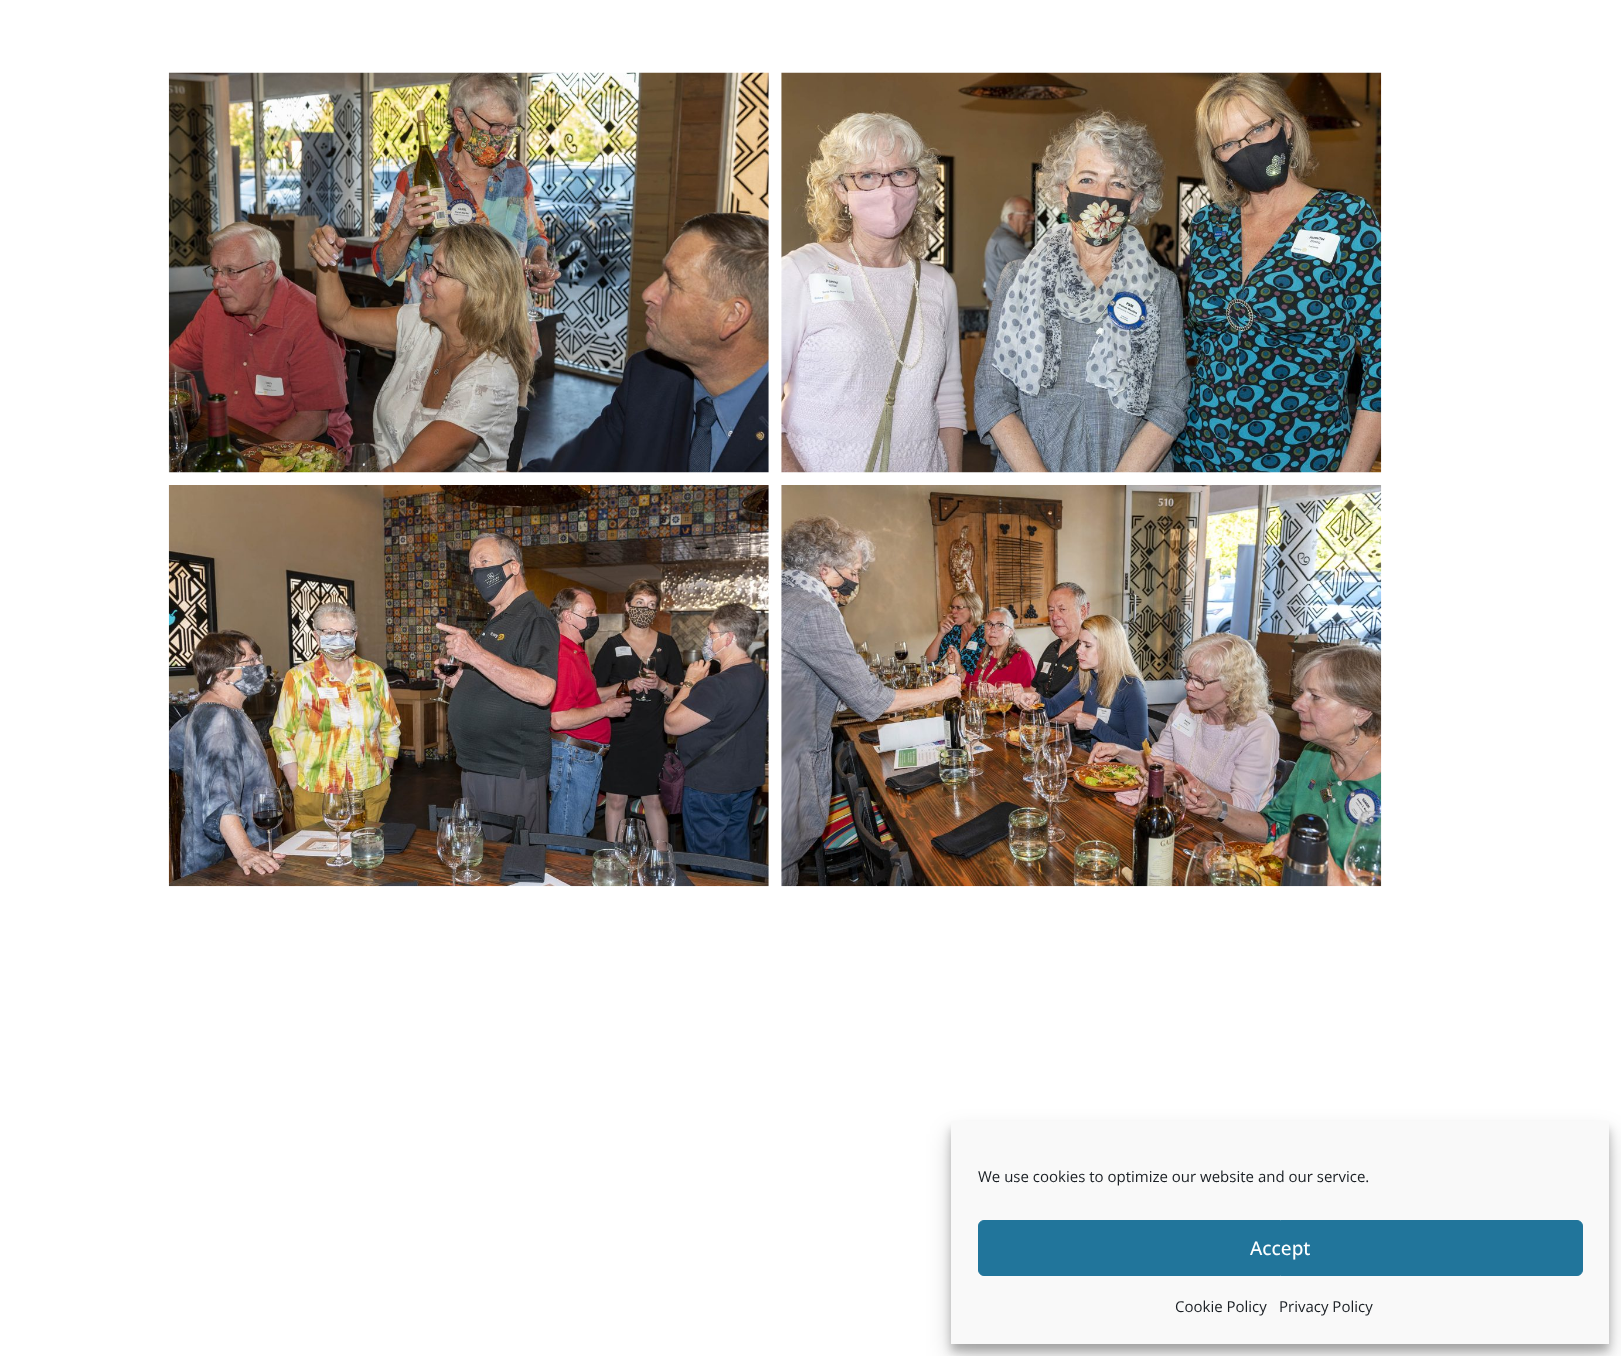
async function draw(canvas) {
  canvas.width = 1621
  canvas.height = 1356
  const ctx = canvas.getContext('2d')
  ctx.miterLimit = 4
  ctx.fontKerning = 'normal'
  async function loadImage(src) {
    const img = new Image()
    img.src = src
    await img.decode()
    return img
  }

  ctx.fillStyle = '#fff'
  ctx.fillRect(0, 0, 1621, 1356)
  ctx.drawImage(await loadImage('image0.png'), 168, 72, 601, 401)
  ctx.drawImage(await loadImage('image1.png'), 781, 72, 601, 401)
  ctx.drawImage(await loadImage('image2.png'), 168, 485, 601, 402)
  ctx.drawImage(await loadImage('image3.png'), 781, 485, 601, 402)
  ctx.fillStyle = '#0000003b'
  ctx.filter = 'blur(4px)'
  ctx.beginPath()
  ctx.rect(951, 1129, 658, 222)
  ctx.fill()
  ctx.filter = 'none'
  ctx.fillStyle = '#00000030'
  ctx.filter = 'blur(12.5px)'
  ctx.beginPath()
  ctx.rect(951, 1134, 658, 222)
  ctx.fill()
  ctx.filter = 'none'
  ctx.fillStyle = '#f9f9f9'
  ctx.fillRect(951, 1121, 658, 223)
  ctx.font = '15px Open Sans'
  ctx.fillStyle = '#191e23'
  ctx.fillText('We use cookies to optimize our website and our service.', 978, 1182)
  ctx.fillStyle = '#21759b'
  ctx.beginPath()
  ctx.roundRect(978.5, 1220.5, 604, 55, 5.5)
  ctx.fill()
  ctx.strokeStyle = '#21759b'
  ctx.stroke()
  ctx.font = '500 19px Open Sans'
  ctx.fillStyle = '#fff'
  ctx.fillText('Accept', 1250, 1255)
  ctx.font = '15px Open Sans'
  ctx.fillStyle = '#191e23'
  ctx.fillText('Cookie Policy', 1175, 1312)
  ctx.fillText('Privacy Policy', 1279, 1312)
}

draw(document.querySelector('canvas'))
